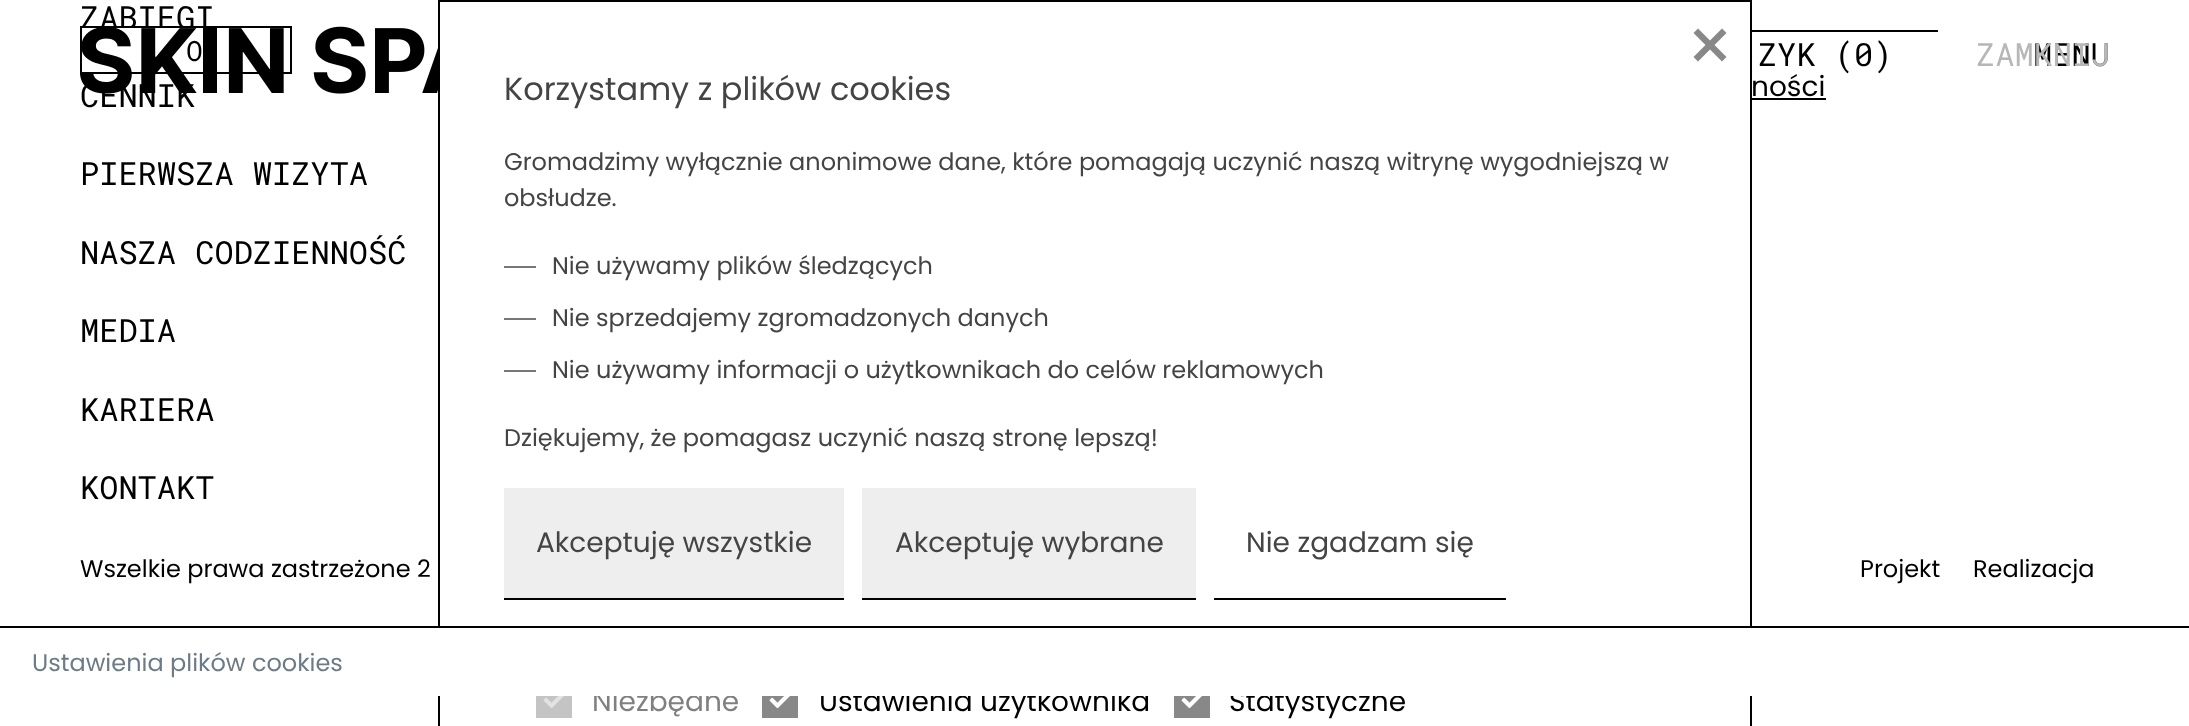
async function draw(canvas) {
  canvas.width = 2189
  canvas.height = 726
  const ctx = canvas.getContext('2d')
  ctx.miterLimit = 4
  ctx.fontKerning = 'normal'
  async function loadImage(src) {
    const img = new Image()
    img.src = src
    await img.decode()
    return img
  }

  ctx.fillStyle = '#fff'
  ctx.fillRect(0, 0, 2189, 726)
  ctx.font = '32px Roboto Mono'
  ctx.fillStyle = '#000'
  ctx.fillText('ZABIEGI', 80, 29)
  ctx.fillText('CENNIK', 80, 107)
  ctx.fillText('PIERWSZA WIZYTA', 80, 185)
  ctx.fillText('NASZA CODZIENNOŚĆ', 80, 264)
  ctx.fillText('MEDIA', 80, 342)
  ctx.fillText('KARIERA', 80, 421)
  ctx.fillText('KONTAKT', 80, 499)
  ctx.fillRect(1752, 30, 186, 2)
  ctx.font = '28px Poppins'
  ctx.fillText('ności', 1751, 96)
  ctx.fillRect(1752, 98, 74, 2)
  ctx.font = '24px Poppins'
  ctx.fillText('Wszelkie prawa zastrzeżone 2', 80, 577)
  ctx.fillText('Projekt', 1860, 577)
  ctx.fillText('Realizacja', 1973, 577)
  ctx.fillStyle = '#fff'
  ctx.fillRect(82, 28, 130, 2)
  ctx.strokeStyle = '#000'
  ctx.lineWidth = 2
  ctx.strokeRect(81, 27, 210, 46)
  ctx.font = '28px Roboto Mono'
  ctx.fillStyle = '#000'
  ctx.fillText('O', 186, 61)
  ctx.drawImage(await loadImage('image0.png'), 80, 26, 358, 68)
  ctx.font = '32px Roboto Mono'
  ctx.fillText('ZYK (0)', 1758, 66)
  ctx.fillText('MENU', 2033, 66)
  ctx.fillStyle = '#b7b7b7'
  ctx.fillText('ZAMKNIJ', 1976, 66)
  ctx.strokeRect(439, 1, 1312, 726)
  ctx.font = '28px Poppins'
  ctx.fillStyle = '#808080'
  ctx.fillText('Niezbędne', 592, 711)
  ctx.fillStyle = '#000'
  ctx.fillText('Ustawienia użytkownika', 819, 711)
  ctx.fillText('Statystyczne', 1229, 711)
  ctx.fillStyle = '#fff'
  ctx.fillRect(438, 628, 1314, 68)
  ctx.fillStyle = '#000'
  ctx.fillRect(0, 626, 2189, 2)
  ctx.font = '24px Poppins'
  ctx.fillStyle = '#6d7b87'
  ctx.fillText('Ustawienia plików cookies', 32, 671)
  ctx.fillStyle = '#888'
  ctx.beginPath()
  ctx.moveTo(1698, 28.5)
  ctx.lineTo(1726.5, 57)
  ctx.lineTo(1722, 61.5)
  ctx.lineTo(1693.5, 33)
  ctx.closePath()
  ctx.fill()
  ctx.beginPath()
  ctx.moveTo(1693.5, 57)
  ctx.lineTo(1722, 28.5)
  ctx.lineTo(1726.5, 33)
  ctx.lineTo(1698, 61.5)
  ctx.closePath()
  ctx.fill()
  ctx.font = '32px Poppins'
  ctx.fillStyle = '#444'
  ctx.fillText('Korzystamy z plików cookies', 504, 100)
  ctx.font = '24px Poppins'
  ctx.fillText('Gromadzimy wyłącznie anonimowe dane, które pomagają uczynić naszą witrynę wygodniejszą w', 504, 170)
  ctx.fillText('obsłudze.', 504, 206)
  ctx.fillStyle = '#777'
  ctx.fillRect(504, 266, 32, 2)
  ctx.fillStyle = '#444'
  ctx.fillText('Nie używamy plików śledzących', 552, 274)
  ctx.fillStyle = '#777'
  ctx.fillRect(504, 318, 32, 2)
  ctx.fillStyle = '#444'
  ctx.fillText('Nie sprzedajemy zgromadzonych danych', 552, 326)
  ctx.fillStyle = '#777'
  ctx.fillRect(504, 370, 32, 2)
  ctx.fillStyle = '#444'
  ctx.fillText('Nie używamy informacji o użytkownikach do celów reklamowych', 552, 378)
  ctx.fillText('Dziękujemy, że pomagasz uczynić naszą stronę lepszą!', 504, 446)
  ctx.fillStyle = '#eee'
  ctx.fillRect(504, 488, 340, 110)
  ctx.fillStyle = '#000'
  ctx.fillRect(504, 598, 340, 2)
  ctx.font = '28px Poppins'
  ctx.fillStyle = '#444'
  ctx.fillText('Akceptuję wszystkie', 536, 552)
  ctx.fillStyle = '#eee'
  ctx.fillRect(862, 488, 334, 110)
  ctx.fillStyle = '#000'
  ctx.fillRect(862, 598, 334, 2)
  ctx.fillStyle = '#444'
  ctx.fillText('Akceptuję wybrane', 895, 552)
  ctx.fillStyle = '#000'
  ctx.fillRect(1214, 598, 292, 2)
  ctx.fillStyle = '#444'
  ctx.fillText('Nie zgadzam się', 1246, 552)
  ctx.fillStyle = '#c4c4c4'
  ctx.fillRect(536, 696, 36, 22)
  ctx.drawImage(await loadImage('image1.png'), 543, 696, 21, 12)
  ctx.fillStyle = '#888'
  ctx.fillRect(762, 696, 36, 22)
  ctx.drawImage(await loadImage('image2.png'), 769, 696, 21, 13)
  ctx.fillRect(1174, 696, 36, 22)
  ctx.drawImage(await loadImage('image2.png'), 1181, 696, 21, 13)
}

draw(document.querySelector('canvas'))
